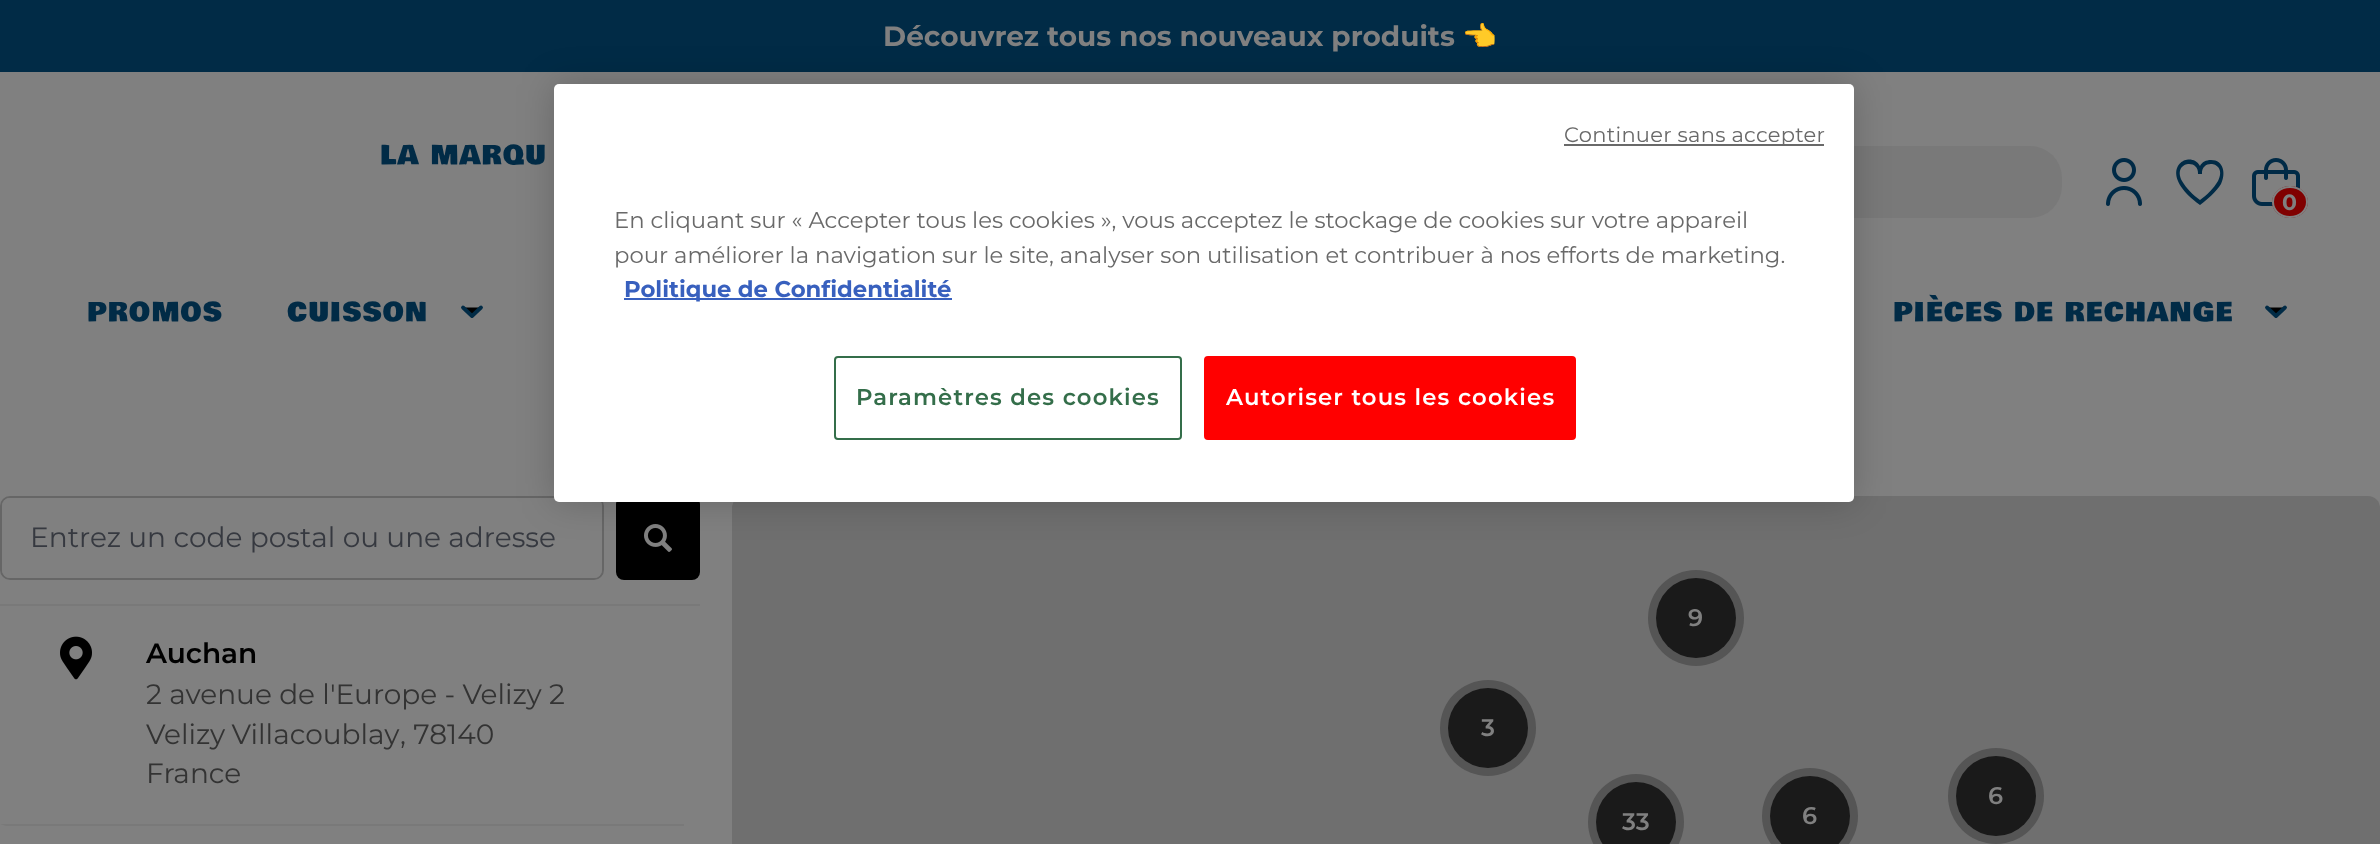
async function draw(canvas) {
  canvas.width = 2380
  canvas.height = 844
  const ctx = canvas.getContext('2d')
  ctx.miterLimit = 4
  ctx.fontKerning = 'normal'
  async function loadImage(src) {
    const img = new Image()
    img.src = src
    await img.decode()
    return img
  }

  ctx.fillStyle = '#808080'
  ctx.fillRect(0, 0, 2380, 844)
  ctx.fillStyle = '#012b46'
  ctx.fillRect(0, 0, 2380, 72)
  ctx.font = 'bold 28px Montserrat'
  ctx.fillStyle = '#808080'
  ctx.fillText('Découvrez tous nos nouveaux produits', 883, 46)
  ctx.font = 'bold 28px Noto Color Emoji'
  ctx.fillText('👈', 1462, 46)
  ctx.fillStyle = '#797979'
  ctx.beginPath()
  ctx.roundRect(1376, 146, 686, 72, 32)
  ctx.fill()
  ctx.beginPath()
  ctx.roundRect(1, 497, 602, 82, 9)
  ctx.strokeStyle = '#666'
  ctx.lineWidth = 2
  ctx.stroke()
  ctx.fillStyle = '#808080'
  ctx.beginPath()
  ctx.roundRect(2, 498, 600, 80, 8)
  ctx.fill()
  ctx.fillStyle = '#000'
  ctx.beginPath()
  ctx.roundRect(616, 496, 84, 84, 8)
  ctx.fill()
  ctx.drawImage(await loadImage('image2.png'), 644, 524, 28, 28)
  ctx.fillStyle = '#6f6f6f'
  ctx.beginPath()
  ctx.roundRect(732, 496, 1648, 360, 12)
  ctx.fill()
  ctx.fillStyle = '#00000033'
  ctx.filter = 'blur(18px)'
  ctx.beginPath()
  ctx.roundRect(554, 84, 1300, 418, 5)
  ctx.fill()
  ctx.filter = 'none'
  ctx.fillStyle = '#fff'
  ctx.beginPath()
  ctx.roundRect(554, 84, 1300, 418, 5)
  ctx.fill()
  ctx.fillStyle = '#696969'
  ctx.fillRect(1564, 144, 260, 2)
  ctx.letterSpacing = '0.25px'
  ctx.font = '21px Montserrat'
  ctx.fillText('Continuer sans accepter', 1564, 142)
  ctx.letterSpacing = '0px'
  ctx.font = '22.75px Montserrat'
  ctx.fillText('En cliquant sur « Accepter tous les cookies », vous acceptez le stockage de cookies sur votre appareil', 614, 228)
  ctx.fillText('pour améliorer la navigation sur le site, analyser son utilisation et contribuer à nos efforts de marketing.', 614, 263)
  ctx.fillStyle = '#3860be'
  ctx.fillRect(624, 298, 328, 2)
  ctx.font = 'bold 22.75px Montserrat'
  ctx.fillText('Politique de Confidentialité', 624, 297)
  ctx.beginPath()
  ctx.roundRect(835, 357, 346, 82, 3)
  ctx.strokeStyle = '#346e4a'
  ctx.stroke()
  ctx.letterSpacing = '1.15px'
  ctx.font = '600 22.75px Montserrat'
  ctx.fillStyle = '#346e4a'
  ctx.fillText('Paramètres des cookies', 856, 405)
  ctx.fillStyle = '#f00'
  ctx.beginPath()
  ctx.roundRect(1205, 357, 370, 82, 3)
  ctx.fill()
  ctx.strokeStyle = '#f00'
  ctx.stroke()
  ctx.fillStyle = '#fff'
  ctx.fillText('Autoriser tous les cookies', 1226, 405)
  ctx.letterSpacing = '1.4px'
  ctx.font = '26px Bowlby One'
  ctx.fillStyle = '#012b46'
  ctx.fillText('LA MARQU', 380, 164)
  ctx.drawImage(await loadImage('image0.png'), 2106, 158, 36, 48)
  ctx.beginPath()
  ctx.moveTo(2211, 160)
  ctx.bezierCurveTo(2206, 160, 2202, 162, 2200, 166)
  ctx.bezierCurveTo(2190, 148, 2152, 170, 2200, 205)
  ctx.bezierCurveTo(2208, 199, 2216, 192, 2221, 184)
  ctx.bezierCurveTo(2226, 174, 2224, 160, 2211, 160)
  ctx.closePath()
  ctx.moveTo(2200, 200)
  ctx.bezierCurveTo(2193, 195, 2186, 188, 2182, 181)
  ctx.bezierCurveTo(2172, 162, 2199, 158, 2198, 174)
  ctx.lineTo(2202, 174)
  ctx.bezierCurveTo(2201, 158, 2228, 162, 2218, 181)
  ctx.bezierCurveTo(2214, 188, 2207, 195, 2200, 200)
  ctx.closePath()
  ctx.fill()
  ctx.drawImage(await loadImage('image1.png'), 2252, 158, 48, 48)
  ctx.fillStyle = '#800000'
  ctx.beginPath()
  ctx.ellipse(2290, 202, 18, 16, 0, 0, 2 * Math.PI)
  ctx.fill()
  ctx.beginPath()
  ctx.moveTo(2290, 187)
  ctx.bezierCurveTo(2299.5, 187, 2307, 193.5, 2307, 202)
  ctx.bezierCurveTo(2307, 210.5, 2299.5, 217, 2290, 217)
  ctx.bezierCurveTo(2280.5, 217, 2273, 210.5, 2273, 202)
  ctx.bezierCurveTo(2273, 193.5, 2280.5, 187, 2290, 187)
  ctx.closePath()
  ctx.strokeStyle = '#808080'
  ctx.stroke()
  ctx.letterSpacing = '1px'
  ctx.font = 'bold 22px Montserrat'
  ctx.fillStyle = '#808080'
  ctx.fillText('0', 2282, 210)
  ctx.letterSpacing = '1.4px'
  ctx.font = '26px Bowlby One'
  ctx.fillStyle = '#012b46'
  ctx.fillText('PROMOS', 87, 321)
  ctx.fillText('CUISSON', 287, 321)
  ctx.fillStyle = '#000'
  ctx.beginPath()
  ctx.moveTo(481, 307.5)
  ctx.lineTo(472, 316)
  ctx.lineTo(463, 307.5)
  ctx.fill()
  ctx.strokeStyle = '#012b46'
  ctx.lineWidth = 3.8
  ctx.lineCap = 'round'
  ctx.lineJoin = 'round'
  ctx.stroke()
  ctx.fillStyle = '#012b46'
  ctx.fillText('PIÈCES DE RECHANGE', 1893, 321)
  ctx.fillStyle = '#000'
  ctx.beginPath()
  ctx.moveTo(2285, 307.5)
  ctx.lineTo(2276, 316)
  ctx.lineTo(2267, 307.5)
  ctx.fill()
  ctx.stroke()
  ctx.letterSpacing = '0px'
  ctx.font = '28px Montserrat'
  ctx.fillStyle = '#363940'
  ctx.fillText('Entrez un code postal ou une adresse', 30, 547)
  ctx.fillStyle = '#797979'
  ctx.fillRect(0, 604, 700, 2)
  ctx.drawImage(await loadImage('image3.png'), 60, 636, 32, 44)
  ctx.font = '600 28px Montserrat'
  ctx.fillStyle = '#000'
  ctx.fillText('Auchan', 146, 663)
  ctx.font = '28px Montserrat'
  ctx.fillStyle = '#333'
  ctx.fillText('2 avenue de l\'Europe - Velizy 2', 146, 704)
  ctx.wordSpacing = '-1px'
  ctx.fillText('Velizy Villacoublay', 146, 744)
  ctx.wordSpacing = '0px'
  ctx.fillText(', 78140', 400, 744)
  ctx.fillText('France', 146, 783)
  ctx.fillStyle = '#797979'
  ctx.beginPath()
  ctx.moveTo(0, 824)
  ctx.lineTo(684, 824)
  ctx.lineTo(684, 826)
  ctx.lineTo(6, 826)
  ctx.closePath()
  ctx.fill()
  ctx.fillStyle = '#555'
  ctx.beginPath()
  ctx.arc(1696, 618, 48, 0, 2 * Math.PI)
  ctx.fill()
  ctx.fillStyle = '#1a1a1a'
  ctx.beginPath()
  ctx.arc(1696, 618, 40, 0, 2 * Math.PI)
  ctx.fill()
  ctx.font = '600 24px Montserrat'
  ctx.fillStyle = '#808080'
  ctx.fillText('9', 1688, 626)
  ctx.fillStyle = '#555'
  ctx.beginPath()
  ctx.arc(1488, 728, 48, 0, 2 * Math.PI)
  ctx.fill()
  ctx.fillStyle = '#1a1a1a'
  ctx.beginPath()
  ctx.arc(1488, 728, 40, 0, 2 * Math.PI)
  ctx.fill()
  ctx.fillStyle = '#808080'
  ctx.fillText('3', 1481, 736)
  ctx.fillStyle = '#555'
  ctx.beginPath()
  ctx.arc(1996, 796, 48, 0, 2 * Math.PI)
  ctx.fill()
  ctx.fillStyle = '#1a1a1a'
  ctx.beginPath()
  ctx.arc(1996, 796, 40, 0, 2 * Math.PI)
  ctx.fill()
  ctx.fillStyle = '#808080'
  ctx.fillText('6', 1988, 804)
  ctx.fillStyle = '#555'
  ctx.beginPath()
  ctx.arc(1636, 822, 48, 0, 2 * Math.PI)
  ctx.fill()
  ctx.fillStyle = '#1a1a1a'
  ctx.beginPath()
  ctx.arc(1636, 822, 40, 0, 2 * Math.PI)
  ctx.fill()
  ctx.fillStyle = '#808080'
  ctx.fillText('33', 1622, 830)
  ctx.fillStyle = '#555'
  ctx.beginPath()
  ctx.arc(1810, 816, 48, 0, 2 * Math.PI)
  ctx.fill()
  ctx.fillStyle = '#1a1a1a'
  ctx.beginPath()
  ctx.arc(1810, 816, 40, 0, 2 * Math.PI)
  ctx.fill()
  ctx.fillStyle = '#808080'
  ctx.fillText('6', 1802, 824)
}

draw(document.querySelector('canvas'))
